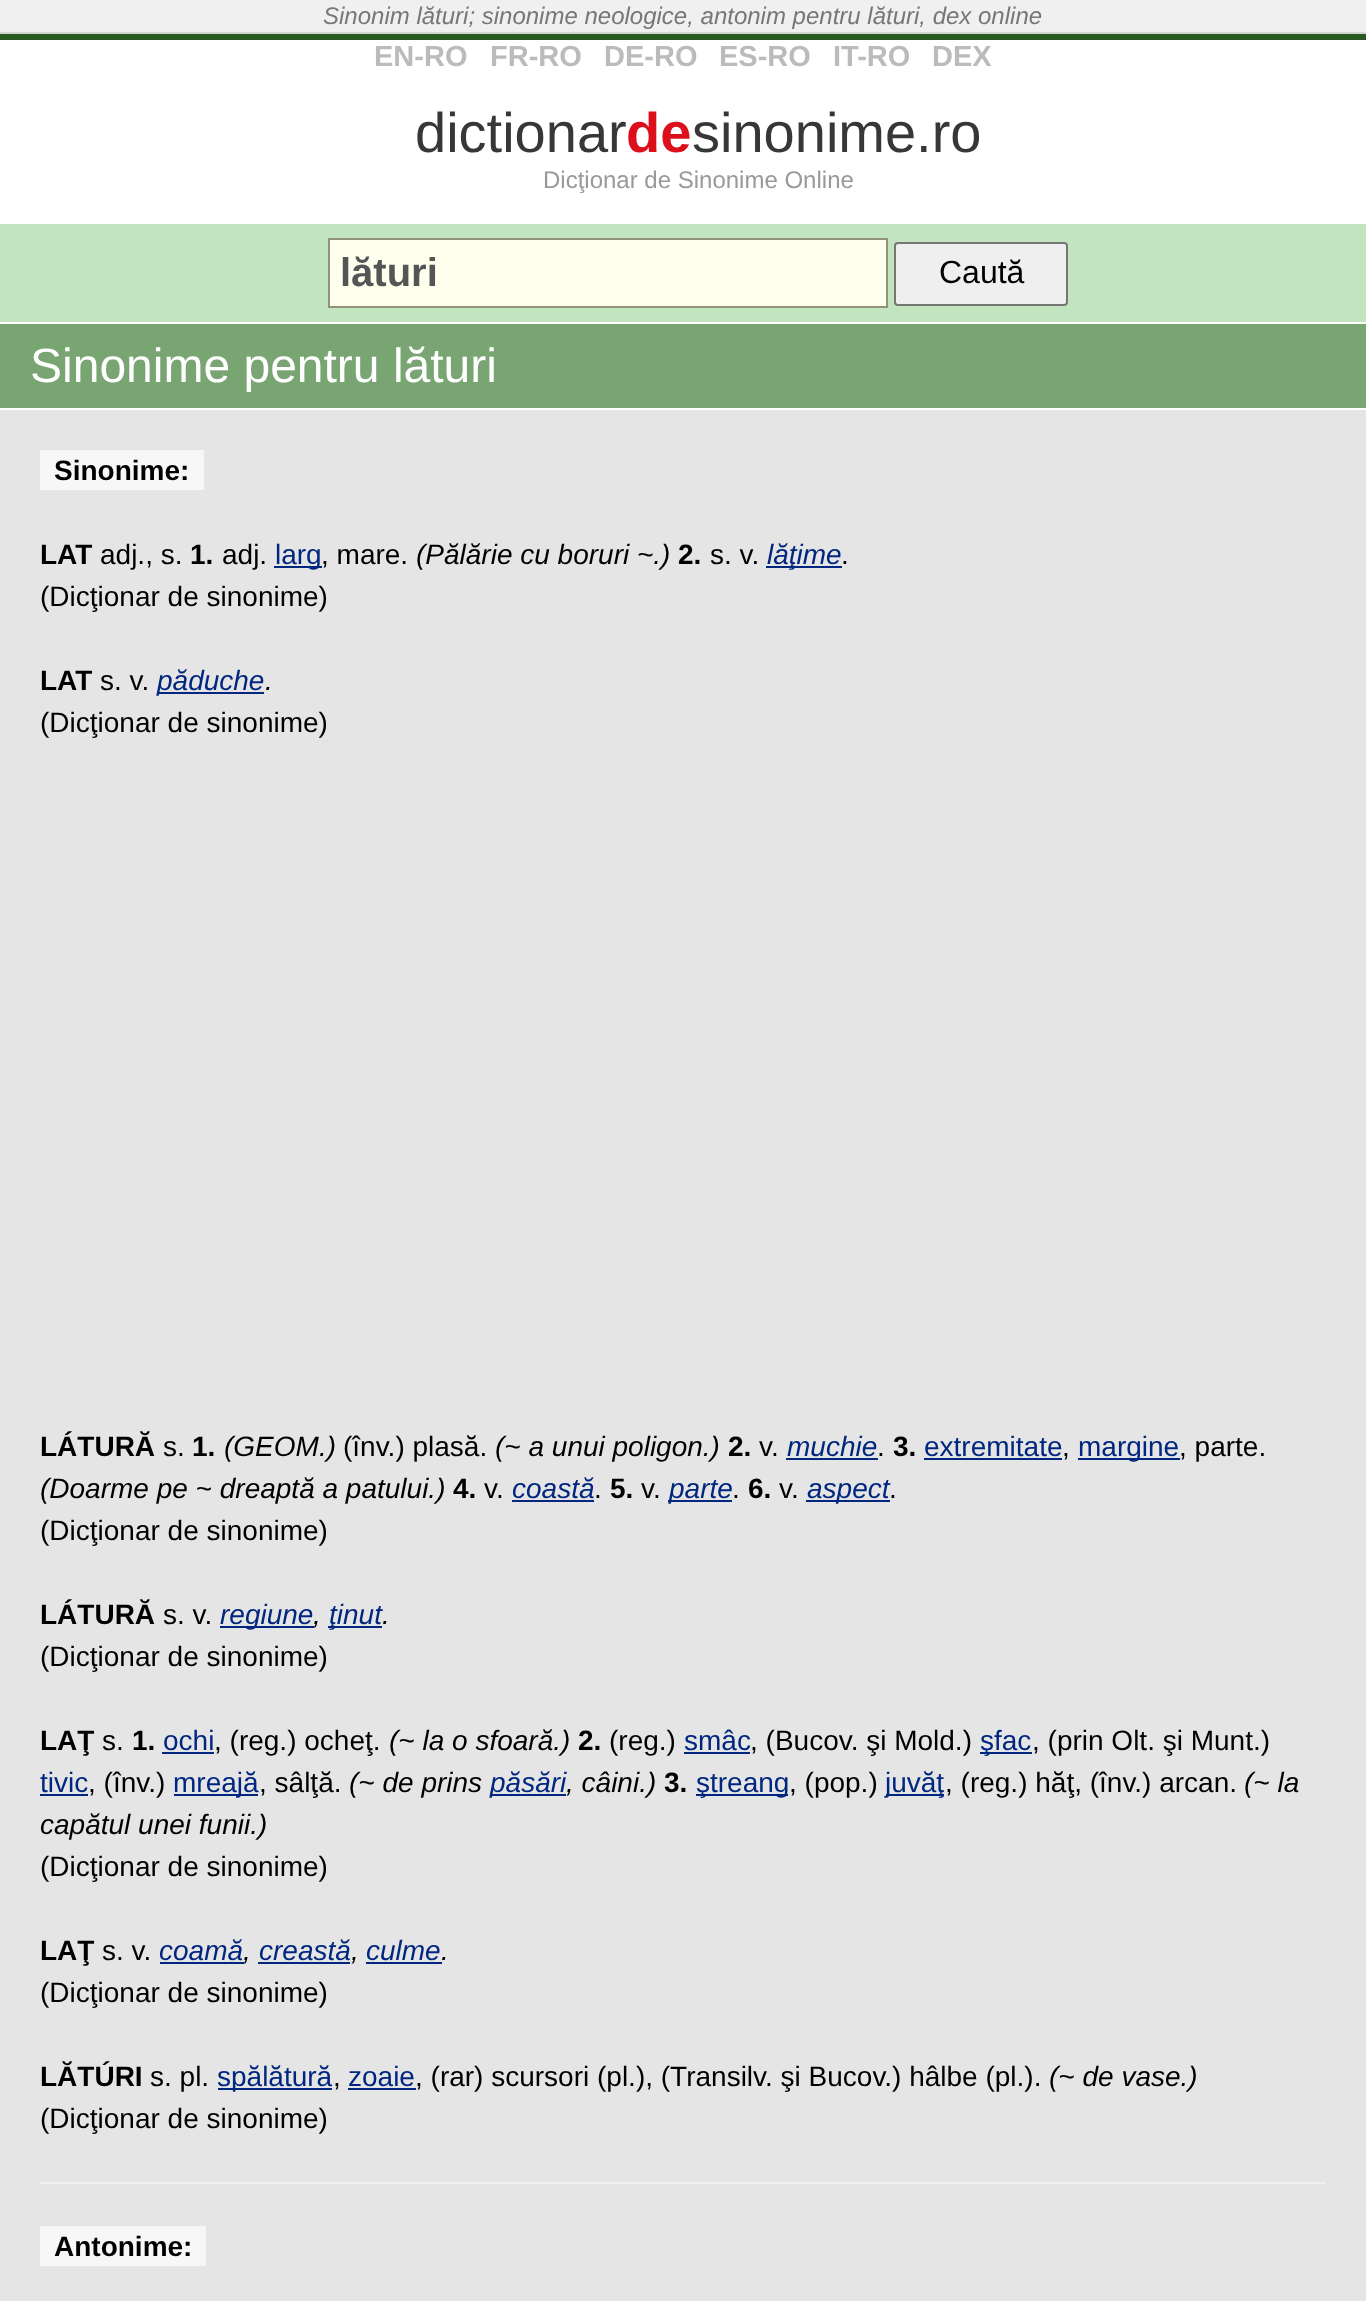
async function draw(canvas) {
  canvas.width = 1366
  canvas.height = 2301
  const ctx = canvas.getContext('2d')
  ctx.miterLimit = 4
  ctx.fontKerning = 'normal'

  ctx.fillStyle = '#fff'
  ctx.fillRect(0, 0, 1366, 2301)
  ctx.fillStyle = '#f0f0f0'
  ctx.fillRect(0, 0, 1366, 32)
  ctx.fillStyle = '#d6d6d6'
  ctx.fillRect(0, 32, 1366, 2)
  ctx.font = 'italic 24px Liberation Sans'
  ctx.fillStyle = '#777'
  ctx.fillText('Sinonim lături; sinonime neologice, antonim pentru lături, dex online', 323, 24)
  ctx.fillStyle = '#285a21'
  ctx.fillRect(0, 34, 1366, 6)
  ctx.font = 'bold 29px Liberation Sans'
  ctx.fillStyle = '#bbb'
  ctx.fillText('EN-RO', 374, 66)
  ctx.fillText('FR-RO', 490, 66)
  ctx.fillText('DE-RO', 604, 66)
  ctx.fillText('ES-RO', 719, 66)
  ctx.fillText('IT-RO', 833, 66)
  ctx.fillText('DEX', 932, 66)
  ctx.font = '56px Liberation Sans'
  ctx.fillStyle = '#373737'
  ctx.fillText('dictionar', 415, 152)
  ctx.font = 'bold 56px Liberation Sans'
  ctx.fillStyle = '#dd0f1b'
  ctx.fillText('de', 626, 152)
  ctx.font = '56px Liberation Sans'
  ctx.fillStyle = '#373737'
  ctx.fillText('sinonime.ro', 692, 152)
  ctx.font = '24px Liberation Sans'
  ctx.fillStyle = '#999'
  ctx.fillText('Dicţionar de Sinonime Online', 543, 188)
  ctx.fillStyle = '#c2e4be'
  ctx.fillRect(0, 224, 1366, 98)
  ctx.fillStyle = '#ffe'
  ctx.beginPath()
  ctx.rect(329, 239, 558, 68)
  ctx.fill()
  ctx.strokeStyle = '#92917c'
  ctx.lineWidth = 2
  ctx.stroke()
  ctx.font = 'bold 40px Liberation Sans'
  ctx.fillStyle = '#555'
  ctx.fillText('lături', 340, 286)
  ctx.fillStyle = '#efefef'
  ctx.beginPath()
  ctx.roundRect(895, 243, 172, 62, 3)
  ctx.fill()
  ctx.strokeStyle = '#767676'
  ctx.stroke()
  ctx.font = '32px Liberation Sans'
  ctx.fillStyle = '#000'
  ctx.fillText('Caută', 939, 283)
  ctx.fillStyle = '#79a573'
  ctx.fillRect(0, 324, 1366, 84)
  ctx.font = '48px Liberation Sans'
  ctx.fillStyle = '#fff'
  ctx.fillText('Sinonime pentru lături', 30, 382)
  ctx.fillStyle = '#e5e5e5'
  ctx.fillRect(0, 410, 1366, 1891)
  ctx.fillStyle = '#f7f7f7'
  ctx.fillRect(40, 450, 164, 40)
  ctx.font = 'bold 28px Liberation Sans'
  ctx.fillStyle = '#000'
  ctx.fillText('Sinonime:', 54, 480)
  ctx.fillText('LAT', 40, 564)
  ctx.font = '28px Liberation Sans'
  ctx.fillText('adj., s.', 100, 564)
  ctx.font = 'bold 28px Liberation Sans'
  ctx.fillText('1.', 190, 564)
  ctx.font = '28px Liberation Sans'
  ctx.fillText('adj.', 222, 564)
  ctx.fillStyle = '#01267f'
  ctx.fillRect(274, 566, 48, 2)
  ctx.fillText('larg', 275, 564)
  ctx.fillStyle = '#000'
  ctx.fillText(', mare.', 321, 564)
  ctx.font = 'italic 28px Liberation Sans'
  ctx.fillText('(Pălărie cu boruri ~.)', 416, 564)
  ctx.font = 'bold 28px Liberation Sans'
  ctx.fillText('2.', 678, 564)
  ctx.font = '28px Liberation Sans'
  ctx.fillText('s. v.', 710, 564)
  ctx.fillStyle = '#01267f'
  ctx.fillRect(766, 566, 76, 2)
  ctx.font = 'italic 28px Liberation Sans'
  ctx.fillText('lăţime', 767, 564)
  ctx.font = '28px Liberation Sans'
  ctx.fillStyle = '#000'
  ctx.fillText('.', 841, 564)
  ctx.fillText('(Dicţionar de sinonime)', 40, 606)
  ctx.font = 'bold 28px Liberation Sans'
  ctx.fillText('LAT', 40, 690)
  ctx.font = '28px Liberation Sans'
  ctx.fillText('s. v.', 100, 690)
  ctx.fillStyle = '#01267f'
  ctx.fillRect(158, 692, 106, 2)
  ctx.font = 'italic 28px Liberation Sans'
  ctx.fillText('păduche', 157, 690)
  ctx.fillStyle = '#000'
  ctx.fillText('.', 265, 690)
  ctx.font = '28px Liberation Sans'
  ctx.fillText('(Dicţionar de sinonime)', 40, 732)
  ctx.font = 'bold 28px Liberation Sans'
  ctx.fillText('LÁTURĂ', 40, 1456)
  ctx.font = '28px Liberation Sans'
  ctx.fillText('s.', 163, 1456)
  ctx.font = 'bold 28px Liberation Sans'
  ctx.fillText('1.', 192, 1456)
  ctx.font = 'italic 28px Liberation Sans'
  ctx.fillText('(GEOM.)', 224, 1456)
  ctx.font = '28px Liberation Sans'
  ctx.fillText('(înv.) plasă.', 343, 1456)
  ctx.font = 'italic 28px Liberation Sans'
  ctx.fillText('(~ a unui poligon.)', 495, 1456)
  ctx.font = 'bold 28px Liberation Sans'
  ctx.fillText('2.', 728, 1456)
  ctx.font = '28px Liberation Sans'
  ctx.fillText('v.', 759, 1456)
  ctx.font = 'italic 28px Liberation Sans'
  ctx.fillStyle = '#01267f'
  ctx.fillText('muchie', 787, 1456)
  ctx.font = '28px Liberation Sans'
  ctx.fillStyle = '#000'
  ctx.fillText('.', 877, 1456)
  ctx.fillStyle = '#01267f'
  ctx.fillRect(786, 1458, 92, 2)
  ctx.font = 'bold 28px Liberation Sans'
  ctx.fillStyle = '#000'
  ctx.fillText('3.', 893, 1456)
  ctx.font = '28px Liberation Sans'
  ctx.fillStyle = '#01267f'
  ctx.fillText('extremitate', 924, 1456)
  ctx.fillStyle = '#000'
  ctx.fillText(',', 1062, 1456)
  ctx.fillStyle = '#01267f'
  ctx.fillRect(924, 1458, 138, 2)
  ctx.fillRect(1078, 1458, 102, 2)
  ctx.fillText('margine', 1078, 1456)
  ctx.fillStyle = '#000'
  ctx.fillText(', parte.', 1179, 1456)
  ctx.font = 'italic 28px Liberation Sans'
  ctx.fillText('(Doarme pe ~ dreaptă a patului.)', 40, 1498)
  ctx.font = 'bold 28px Liberation Sans'
  ctx.fillText('4.', 453, 1498)
  ctx.font = '28px Liberation Sans'
  ctx.fillText('v.', 484, 1498)
  ctx.font = 'italic 28px Liberation Sans'
  ctx.fillStyle = '#01267f'
  ctx.fillText('coastă', 512, 1498)
  ctx.font = '28px Liberation Sans'
  ctx.fillStyle = '#000'
  ctx.fillText('.', 594, 1498)
  ctx.fillStyle = '#01267f'
  ctx.fillRect(512, 1500, 82, 2)
  ctx.font = 'bold 28px Liberation Sans'
  ctx.fillStyle = '#000'
  ctx.fillText('5.', 610, 1498)
  ctx.font = '28px Liberation Sans'
  ctx.fillText('v.', 641, 1498)
  ctx.fillStyle = '#01267f'
  ctx.fillRect(668, 1500, 64, 2)
  ctx.font = 'italic 28px Liberation Sans'
  ctx.fillText('parte', 669, 1498)
  ctx.font = '28px Liberation Sans'
  ctx.fillStyle = '#000'
  ctx.fillText('.', 732, 1498)
  ctx.font = 'bold 28px Liberation Sans'
  ctx.fillText('6.', 748, 1498)
  ctx.font = '28px Liberation Sans'
  ctx.fillText('v.', 779, 1498)
  ctx.fillStyle = '#01267f'
  ctx.fillRect(806, 1500, 84, 2)
  ctx.font = 'italic 28px Liberation Sans'
  ctx.fillText('aspect', 807, 1498)
  ctx.font = '28px Liberation Sans'
  ctx.fillStyle = '#000'
  ctx.fillText('.', 889, 1498)
  ctx.fillText('(Dicţionar de sinonime)', 40, 1540)
  ctx.font = 'bold 28px Liberation Sans'
  ctx.fillText('LÁTURĂ', 40, 1624)
  ctx.font = '28px Liberation Sans'
  ctx.fillText('s. v.', 163, 1624)
  ctx.fillStyle = '#01267f'
  ctx.fillRect(220, 1626, 94, 2)
  ctx.font = 'italic 28px Liberation Sans'
  ctx.fillText('regiune', 220, 1624)
  ctx.fillStyle = '#000'
  ctx.fillText(',', 313, 1624)
  ctx.fillStyle = '#01267f'
  ctx.fillRect(328, 1626, 54, 2)
  ctx.fillText('ţinut', 329, 1624)
  ctx.fillStyle = '#000'
  ctx.fillText('.', 382, 1624)
  ctx.font = '28px Liberation Sans'
  ctx.fillText('(Dicţionar de sinonime)', 40, 1666)
  ctx.font = 'bold 28px Liberation Sans'
  ctx.fillText('LAŢ', 40, 1750)
  ctx.font = '28px Liberation Sans'
  ctx.fillText('s.', 102, 1750)
  ctx.font = 'bold 28px Liberation Sans'
  ctx.fillText('1.', 132, 1750)
  ctx.font = '28px Liberation Sans'
  ctx.fillStyle = '#01267f'
  ctx.fillText('ochi', 163, 1750)
  ctx.fillStyle = '#000'
  ctx.fillText(', (reg.) ocheţ.', 214, 1750)
  ctx.fillStyle = '#01267f'
  ctx.fillRect(162, 1752, 52, 2)
  ctx.font = 'italic 28px Liberation Sans'
  ctx.fillStyle = '#000'
  ctx.fillText('(~ la o sfoară.)', 389, 1750)
  ctx.font = 'bold 28px Liberation Sans'
  ctx.fillText('2.', 578, 1750)
  ctx.font = '28px Liberation Sans'
  ctx.fillText('(reg.)', 609, 1750)
  ctx.fillStyle = '#01267f'
  ctx.fillText('smâc', 684, 1750)
  ctx.fillStyle = '#000'
  ctx.fillText(', (Bucov. şi Mold.)', 750, 1750)
  ctx.fillStyle = '#01267f'
  ctx.fillRect(684, 1752, 66, 2)
  ctx.fillRect(980, 1752, 52, 2)
  ctx.fillText('şfac', 980, 1750)
  ctx.fillStyle = '#000'
  ctx.fillText(', (prin Olt. şi Munt.)', 1032, 1750)
  ctx.fillStyle = '#01267f'
  ctx.fillText('tivic', 40, 1792)
  ctx.fillStyle = '#000'
  ctx.fillText(', (înv.)', 88, 1792)
  ctx.fillStyle = '#01267f'
  ctx.fillRect(40, 1794, 48, 2)
  ctx.fillRect(174, 1794, 84, 2)
  ctx.fillText('mreajă', 173, 1792)
  ctx.fillStyle = '#000'
  ctx.fillText(', sâlţă.', 259, 1792)
  ctx.font = 'italic 28px Liberation Sans'
  ctx.fillText('(~ de prins', 349, 1792)
  ctx.fillStyle = '#01267f'
  ctx.fillRect(490, 1794, 76, 2)
  ctx.fillText('păsări', 490, 1792)
  ctx.fillStyle = '#000'
  ctx.fillText(', câini.)', 566, 1792)
  ctx.font = 'bold 28px Liberation Sans'
  ctx.fillText('3.', 664, 1792)
  ctx.fillStyle = '#01267f'
  ctx.fillRect(696, 1794, 92, 2)
  ctx.font = '28px Liberation Sans'
  ctx.fillText('ştreang', 696, 1792)
  ctx.fillStyle = '#000'
  ctx.fillText(', (pop.)', 789, 1792)
  ctx.fillStyle = '#01267f'
  ctx.fillRect(886, 1794, 58, 2)
  ctx.fillText('juvăţ', 885, 1792)
  ctx.fillStyle = '#000'
  ctx.fillText(', (reg.) hăţ, (înv.) arcan.', 945, 1792)
  ctx.font = 'italic 28px Liberation Sans'
  ctx.fillText('(~ la', 1244, 1792)
  ctx.fillText('capătul unei funii.)', 40, 1834)
  ctx.font = '28px Liberation Sans'
  ctx.fillText('(Dicţionar de sinonime)', 40, 1876)
  ctx.font = 'bold 28px Liberation Sans'
  ctx.fillText('LAŢ', 40, 1960)
  ctx.font = '28px Liberation Sans'
  ctx.fillText('s. v.', 102, 1960)
  ctx.font = 'italic 28px Liberation Sans'
  ctx.fillStyle = '#01267f'
  ctx.fillText('coamă', 159, 1960)
  ctx.fillRect(160, 1962, 84, 2)
  ctx.fillStyle = '#000'
  ctx.fillText(',', 243, 1960)
  ctx.fillStyle = '#01267f'
  ctx.fillText('creastă', 259, 1960)
  ctx.fillStyle = '#000'
  ctx.fillText(',', 351, 1960)
  ctx.fillStyle = '#01267f'
  ctx.fillRect(258, 1962, 92, 2)
  ctx.fillText('culme', 366, 1960)
  ctx.fillStyle = '#000'
  ctx.fillText('.', 441, 1960)
  ctx.fillStyle = '#01267f'
  ctx.fillRect(366, 1962, 76, 2)
  ctx.font = '28px Liberation Sans'
  ctx.fillStyle = '#000'
  ctx.fillText('(Dicţionar de sinonime)', 40, 2002)
  ctx.font = 'bold 28px Liberation Sans'
  ctx.fillText('LĂTÚRI', 40, 2086)
  ctx.font = '28px Liberation Sans'
  ctx.fillText('s. pl.', 150, 2086)
  ctx.fillStyle = '#01267f'
  ctx.fillRect(218, 2088, 114, 2)
  ctx.fillText('spălătură', 217, 2086)
  ctx.fillStyle = '#000'
  ctx.fillText(',', 333, 2086)
  ctx.fillStyle = '#01267f'
  ctx.fillRect(348, 2088, 68, 2)
  ctx.fillText('zoaie', 348, 2086)
  ctx.fillStyle = '#000'
  ctx.fillText(', (rar) scursori (pl.), (Transilv. şi Bucov.) hâlbe (pl.).', 415, 2086)
  ctx.font = 'italic 28px Liberation Sans'
  ctx.fillText('(~ de vase.)', 1049, 2086)
  ctx.font = '28px Liberation Sans'
  ctx.fillText('(Dicţionar de sinonime)', 40, 2128)
  ctx.fillStyle = '#f0f0f0'
  ctx.fillRect(40, 2182, 1286, 2)
  ctx.fillStyle = '#f7f7f7'
  ctx.fillRect(40, 2226, 166, 40)
  ctx.font = 'bold 28px Liberation Sans'
  ctx.fillStyle = '#000'
  ctx.fillText('Antonime:', 54, 2256)
}

draw(document.querySelector('canvas'))
